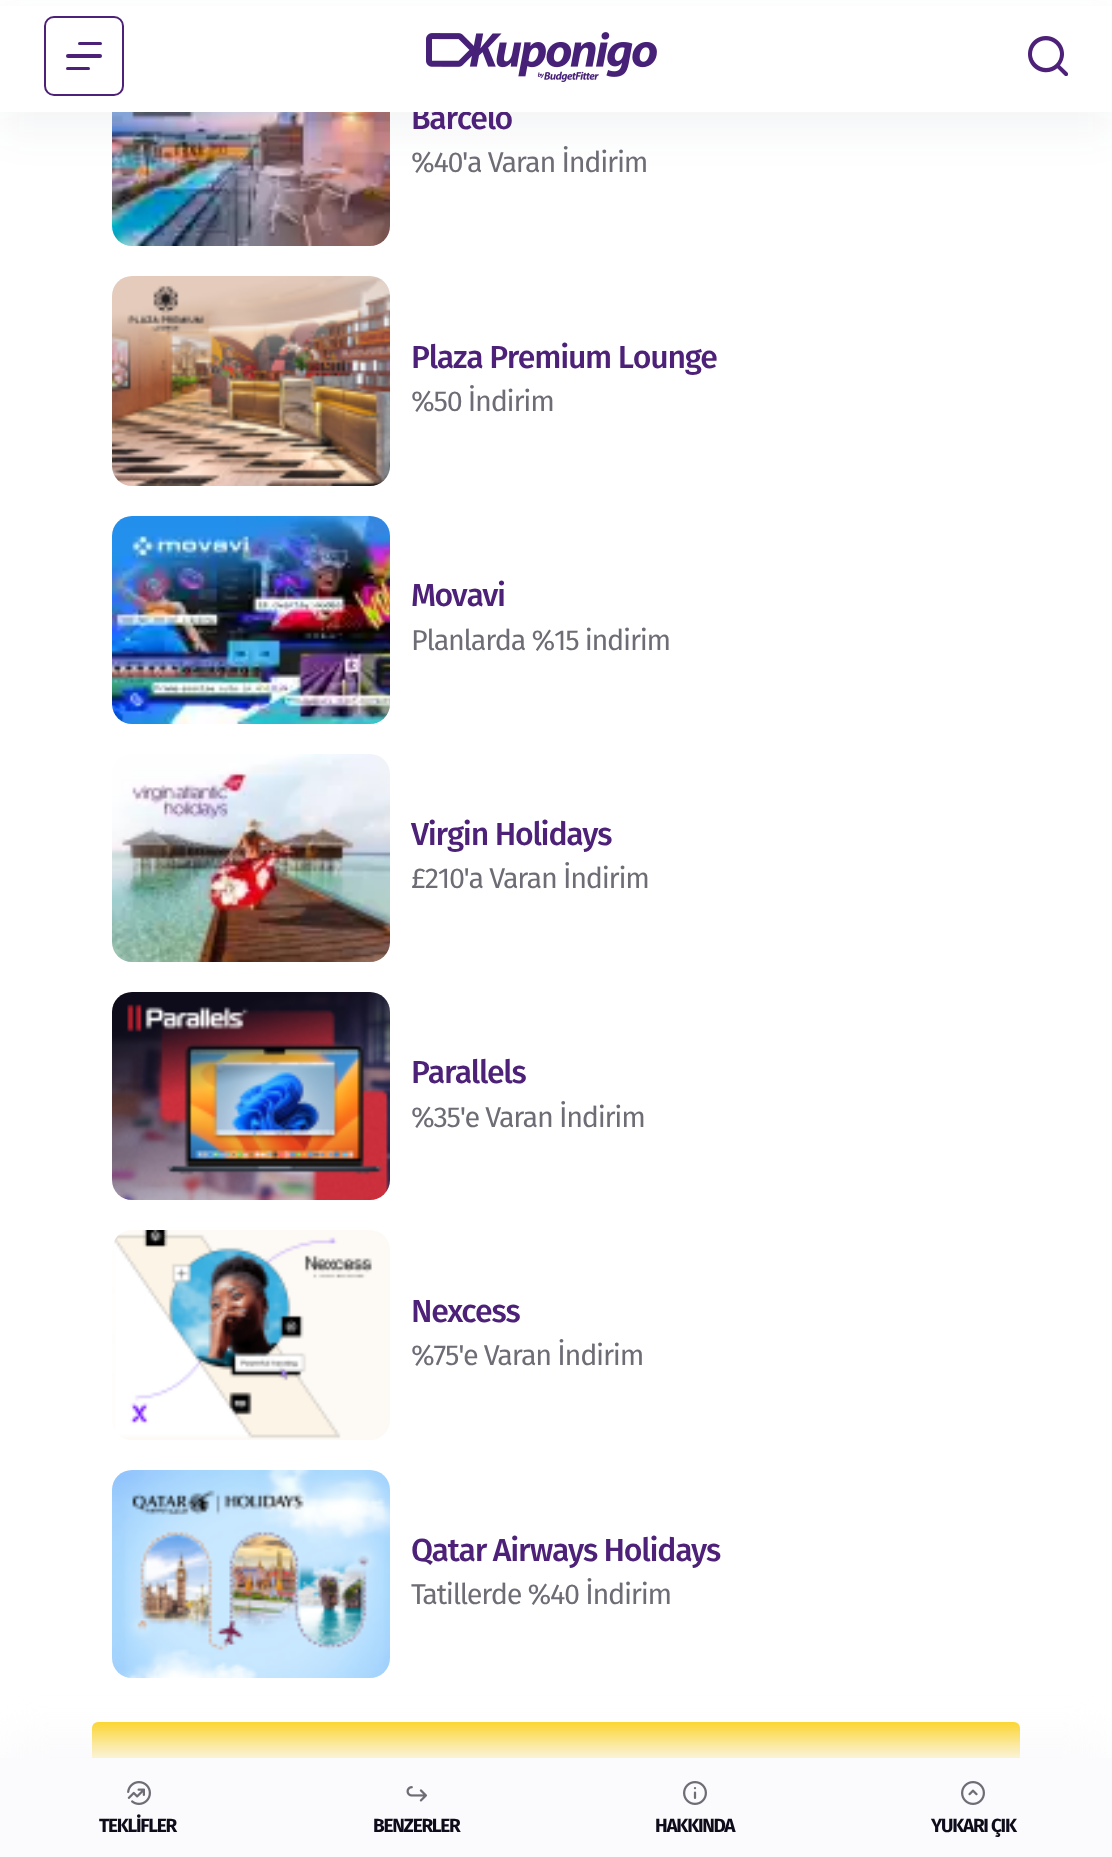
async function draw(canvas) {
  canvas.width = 1112
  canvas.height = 1857
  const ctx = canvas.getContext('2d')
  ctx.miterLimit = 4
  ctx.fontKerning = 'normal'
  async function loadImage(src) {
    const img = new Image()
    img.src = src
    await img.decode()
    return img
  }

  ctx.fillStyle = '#fff'
  ctx.fillRect(0, 0, 1112, 1857)
  ctx.drawImage(await loadImage('image2.png'), 112, 112, 278, 134)
  ctx.fillStyle = '#2c3e500d'
  ctx.filter = 'blur(20px)'
  ctx.beginPath()
  ctx.rect(0, 20, 1112, 112)
  ctx.fill()
  ctx.filter = 'none'
  ctx.letterSpacing = '-1.25px'
  ctx.font = '500 32px Fira Sans'
  ctx.fillStyle = '#4d2178'
  ctx.fillText('Barceló', 411, 129)
  ctx.fillStyle = '#fff'
  ctx.fillRect(0, 6, 1112, 106)
  ctx.beginPath()
  ctx.roundRect(45, 17, 78, 78, 9)
  ctx.strokeStyle = '#4d2178'
  ctx.lineWidth = 2
  ctx.stroke()
  ctx.fillStyle = '#4d2178'
  ctx.beginPath()
  ctx.roundRect(78, 42, 24, 3, 1.5)
  ctx.fill()
  ctx.beginPath()
  ctx.roundRect(66, 54, 36, 4, 2)
  ctx.fill()
  ctx.beginPath()
  ctx.roundRect(66, 67, 24, 3, 1.5)
  ctx.fill()
  ctx.drawImage(await loadImage('image0.png'), 426, 32, 231, 50)
  ctx.drawImage(await loadImage('image1.png'), 1028, 36, 40, 40)
  ctx.font = '28.75px Fira Sans'
  ctx.fillStyle = '#6e6d76'
  ctx.fillText('%40\'a Varan İndirim', 411, 172)
  ctx.drawImage(await loadImage('image3.png'), 112, 276, 278, 210)
  ctx.font = '500 32px Fira Sans'
  ctx.fillStyle = '#4d2178'
  ctx.fillText('Plaza Premium Lounge', 411, 368)
  ctx.font = '28.75px Fira Sans'
  ctx.fillStyle = '#6e6d76'
  ctx.fillText('%50 İndirim', 411, 411)
  ctx.drawImage(await loadImage('image4.png'), 112, 516, 278, 208)
  ctx.font = '500 32px Fira Sans'
  ctx.fillStyle = '#4d2178'
  ctx.fillText('Movavi', 411, 606)
  ctx.font = '28.75px Fira Sans'
  ctx.fillStyle = '#6e6d76'
  ctx.fillText('Planlarda %15 indirim', 411, 650)
  ctx.drawImage(await loadImage('image5.png'), 112, 754, 278, 208)
  ctx.font = '500 32px Fira Sans'
  ctx.fillStyle = '#4d2178'
  ctx.fillText('Virgin Holidays', 411, 845)
  ctx.font = '28.75px Fira Sans'
  ctx.fillStyle = '#6e6d76'
  ctx.fillText('£210\'a Varan İndirim', 411, 888)
  ctx.drawImage(await loadImage('image6.png'), 112, 992, 278, 208)
  ctx.font = '500 32px Fira Sans'
  ctx.fillStyle = '#4d2178'
  ctx.fillText('Parallels', 411, 1083)
  ctx.font = '28.75px Fira Sans'
  ctx.fillStyle = '#6e6d76'
  ctx.fillText('%35\'e Varan İndirim', 411, 1127)
  ctx.drawImage(await loadImage('image7.png'), 112, 1230, 278, 210)
  ctx.font = '500 32px Fira Sans'
  ctx.fillStyle = '#4d2178'
  ctx.fillText('Nexcess', 411, 1322)
  ctx.font = '28.75px Fira Sans'
  ctx.fillStyle = '#6e6d76'
  ctx.fillText('%75\'e Varan İndirim', 411, 1365)
  ctx.drawImage(await loadImage('image8.png'), 112, 1470, 278, 208)
  ctx.font = '500 32px Fira Sans'
  ctx.fillStyle = '#4d2178'
  ctx.fillText('Qatar Airways Holidays', 411, 1561)
  ctx.font = '28.75px Fira Sans'
  ctx.fillStyle = '#6e6d76'
  ctx.fillText('Tatillerde %40 İndirim', 411, 1604)
  ctx.fillStyle = '#fccc00'
  ctx.beginPath()
  ctx.roundRect(92, 1722, 928, 100, 6)
  ctx.fill()
  ctx.fillStyle = '#fafafc'
  ctx.filter = 'blur(20px)'
  ctx.beginPath()
  ctx.rect(0, 1738, 1112, 100)
  ctx.fill()
  ctx.filter = 'none'
  ctx.fillStyle = '#fbfbfd'
  ctx.fillRect(0, 1758, 1112, 99)
  ctx.drawImage(await loadImage('image9.png'), 127, 1781, 24, 24)
  ctx.font = 'bold 19px Fira Sans'
  ctx.fillStyle = '#0e0c1b'
  ctx.fillText('TEKLİFLER', 99, 1832)
  ctx.drawImage(await loadImage('image10.png'), 406, 1786, 21, 16)
  ctx.fillText('BENZERLER', 373, 1832)
  ctx.drawImage(await loadImage('image11.png'), 683, 1781, 24, 24)
  ctx.fillText('HAKKINDA', 655, 1832)
  ctx.drawImage(await loadImage('image12.png'), 961, 1781, 24, 24)
  ctx.fillText('YUKARI ÇIK', 931, 1832)
}

draw(document.querySelector('canvas'))
